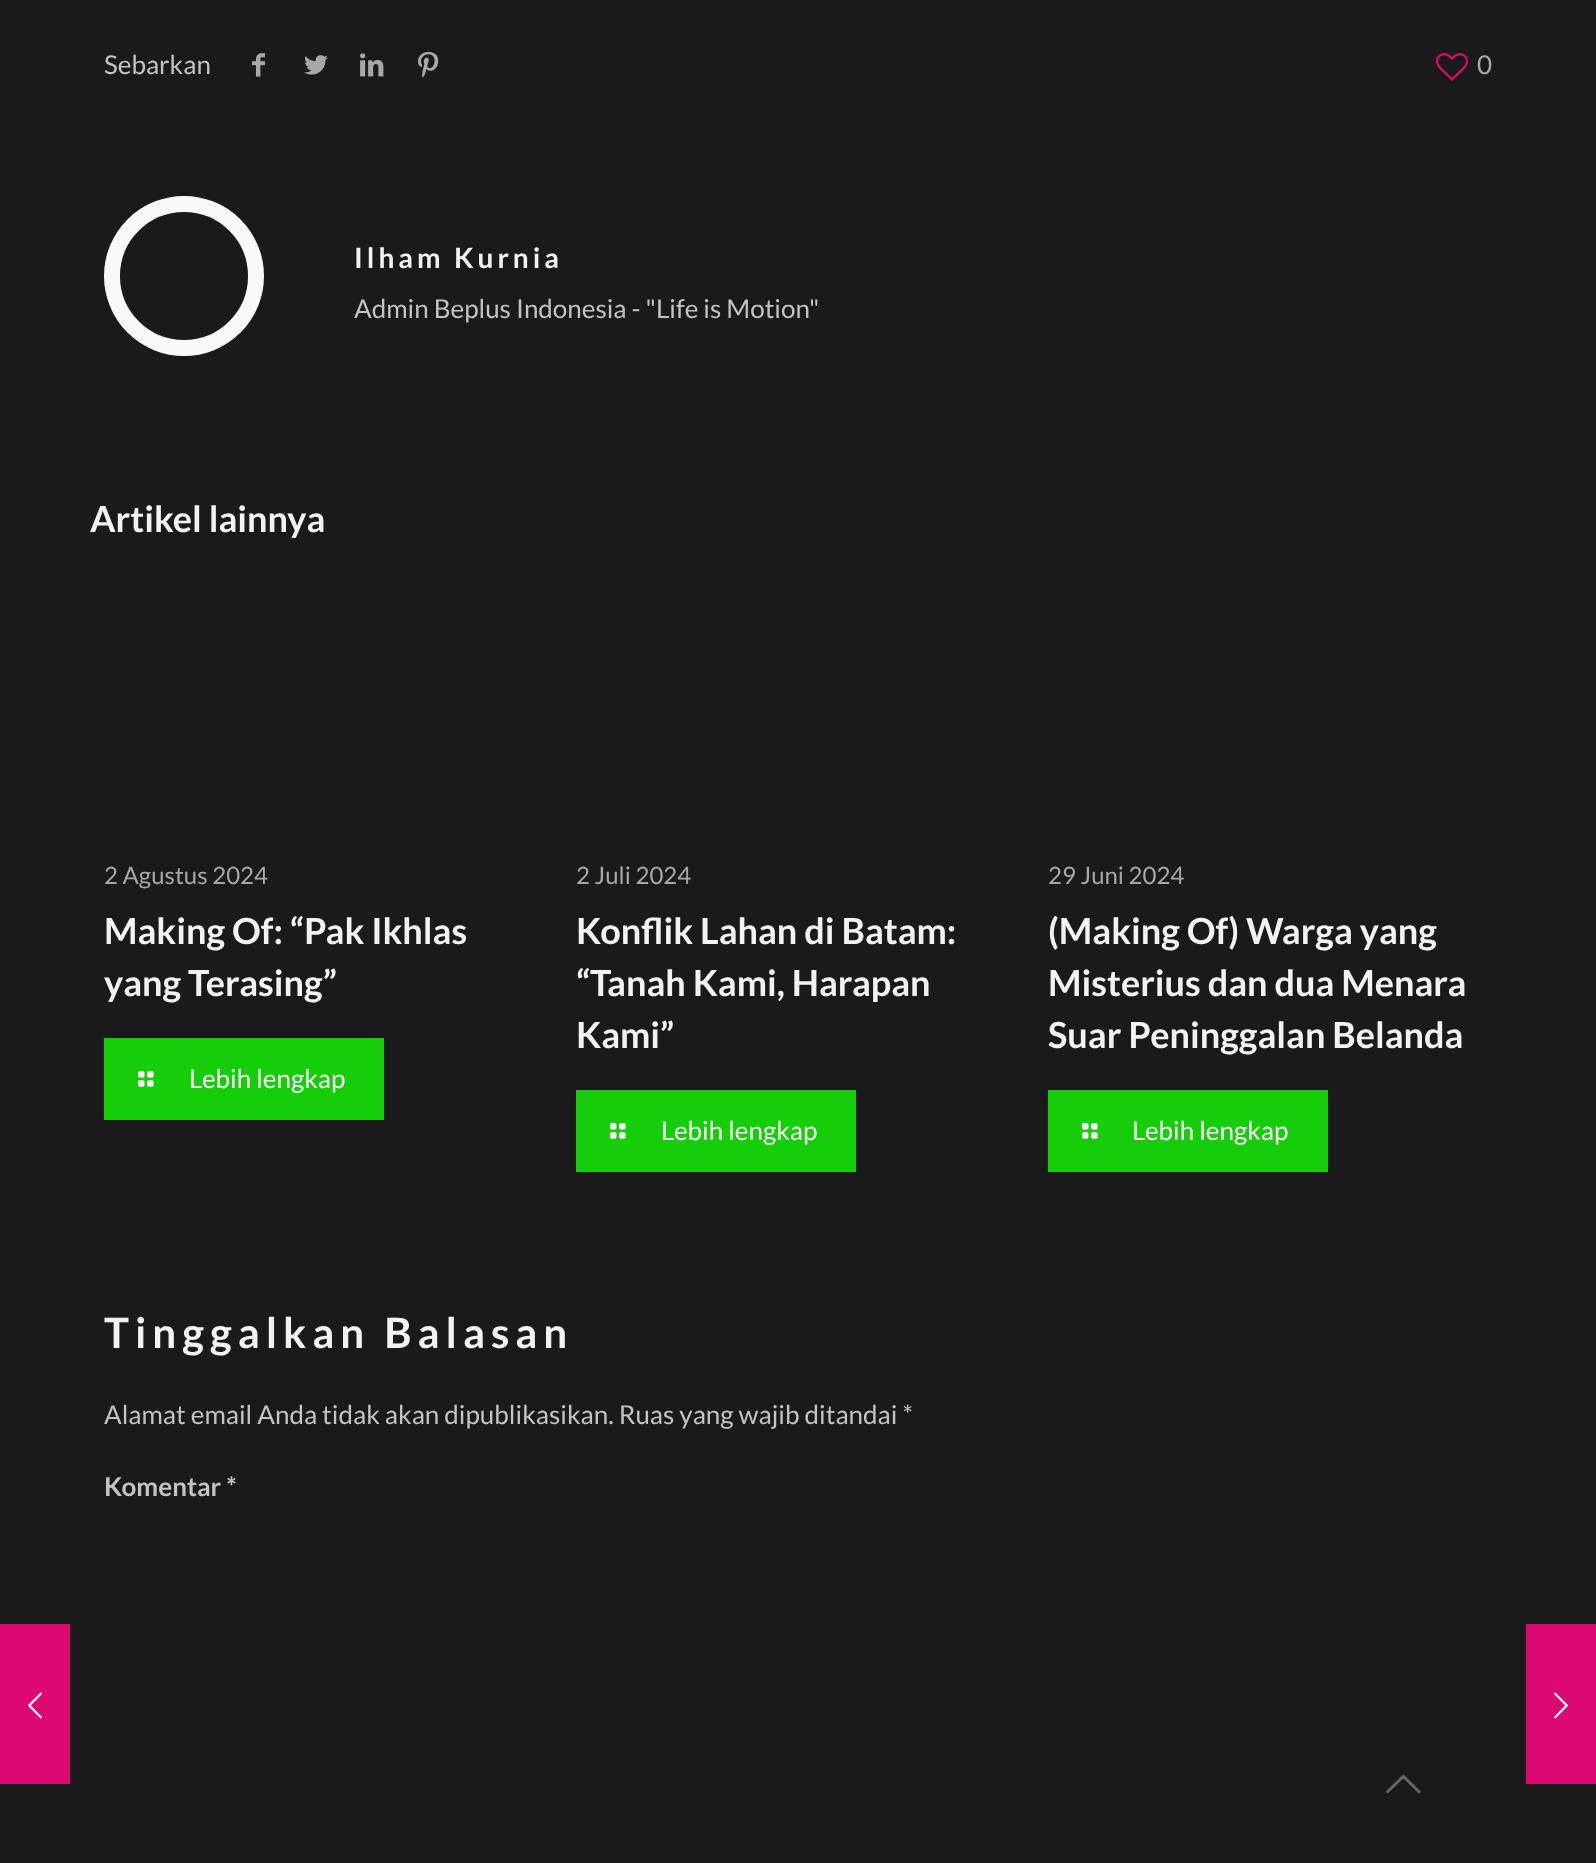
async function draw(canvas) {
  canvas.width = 1596
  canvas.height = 1863
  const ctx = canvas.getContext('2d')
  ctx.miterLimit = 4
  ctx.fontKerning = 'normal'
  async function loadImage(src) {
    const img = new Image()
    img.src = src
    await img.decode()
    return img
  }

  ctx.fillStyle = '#1a1a1a'
  ctx.fillRect(0, 0, 1596, 1863)
  ctx.font = '26px Lato'
  ctx.fillStyle = '#c3c3c3'
  ctx.fillText('Sebarkan', 104, 74)
  ctx.drawImage(await loadImage('image0.png'), 252, 53, 13, 24)
  ctx.drawImage(await loadImage('image1.png'), 304, 55, 24, 20)
  ctx.drawImage(await loadImage('image2.png'), 360, 53, 24, 24)
  ctx.drawImage(await loadImage('image3.png'), 418, 51, 21, 27)
  ctx.drawImage(await loadImage('image4.png'), 1436, 53, 32, 28)
  ctx.fillStyle = '#a8a8a8'
  ctx.fillText('0', 1477, 74)
  ctx.beginPath()
  ctx.arc(184, 276, 72, 0, 2 * Math.PI)
  ctx.strokeStyle = '#f8f8f8'
  ctx.lineWidth = 16
  ctx.stroke()
  ctx.letterSpacing = '4px'
  ctx.font = 'bold 28px Lato'
  ctx.fillStyle = '#f2f2f2'
  ctx.fillText('Ilham Kurnia', 354, 268)
  ctx.letterSpacing = '0px'
  ctx.font = '26px Lato'
  ctx.fillStyle = '#c3c3c3'
  ctx.fillText('Admin Beplus Indonesia - "Life is Motion"', 354, 318)
  ctx.font = 'bold 36px Lato'
  ctx.fillStyle = '#f2f2f2'
  ctx.fillText('Artikel lainnya', 90, 532)
  ctx.font = '24px Lato'
  ctx.fillStyle = '#a8a8a8'
  ctx.fillText('2 Agustus 2024', 104, 884)
  ctx.font = 'bold 36px Lato'
  ctx.fillStyle = '#f2f2f2'
  ctx.fillText('Making Of: “Pak Ikhlas', 104, 944)
  ctx.fillText('yang Terasing”', 104, 996)
  ctx.fillStyle = '#15cd08'
  ctx.fillRect(104, 1038, 280, 82)
  ctx.drawImage(await loadImage('image5.png'), 138, 1071, 16, 16)
  ctx.font = '26px Lato'
  ctx.fillStyle = '#fff'
  ctx.fillText('Lebih lengkap', 189, 1088)
  ctx.font = '24px Lato'
  ctx.fillStyle = '#a8a8a8'
  ctx.fillText('2 Juli 2024', 576, 884)
  ctx.font = 'bold 36px Lato'
  ctx.fillStyle = '#f2f2f2'
  ctx.fillText('Konflik Lahan di Batam:', 576, 944)
  ctx.fillText('“Tanah Kami, Harapan', 576, 996)
  ctx.fillText('Kami”', 576, 1048)
  ctx.fillStyle = '#15cd08'
  ctx.fillRect(576, 1090, 280, 82)
  ctx.drawImage(await loadImage('image5.png'), 610, 1123, 16, 16)
  ctx.font = '26px Lato'
  ctx.fillStyle = '#fff'
  ctx.fillText('Lebih lengkap', 661, 1140)
  ctx.font = '24px Lato'
  ctx.fillStyle = '#a8a8a8'
  ctx.fillText('29 Juni 2024', 1048, 884)
  ctx.font = 'bold 36px Lato'
  ctx.fillStyle = '#f2f2f2'
  ctx.fillText('(Making Of) Warga yang', 1048, 944)
  ctx.fillText('Misterius dan dua Menara', 1048, 996)
  ctx.fillText('Suar Peninggalan Belanda', 1048, 1048)
  ctx.fillStyle = '#15cd08'
  ctx.fillRect(1048, 1090, 280, 82)
  ctx.drawImage(await loadImage('image5.png'), 1082, 1123, 16, 16)
  ctx.font = '26px Lato'
  ctx.fillStyle = '#fff'
  ctx.fillText('Lebih lengkap', 1132, 1140)
  ctx.letterSpacing = '6px'
  ctx.font = 'bold 42px Lato'
  ctx.fillStyle = '#f2f2f2'
  ctx.fillText('Tinggalkan Balasan', 104, 1348)
  ctx.letterSpacing = '0px'
  ctx.font = '26px Lato'
  ctx.fillStyle = '#c3c3c3'
  ctx.fillText('Alamat email Anda tidak akan dipublikasikan. Ruas yang wajib ditandai *', 104, 1424)
  ctx.font = 'bold 26px Lato'
  ctx.fillText('Komentar *', 104, 1496)
  ctx.fillStyle = '#dc0972'
  ctx.fillRect(0, 1624, 70, 160)
  ctx.drawImage(await loadImage('image6.png'), 28, 1692, 14, 27)
  ctx.drawImage(await loadImage('image7.png'), 1386, 1774, 35, 20)
  ctx.fillRect(1526, 1624, 70, 160)
  ctx.drawImage(await loadImage('image8.png'), 1554, 1692, 14, 27)
}

draw(document.querySelector('canvas'))
